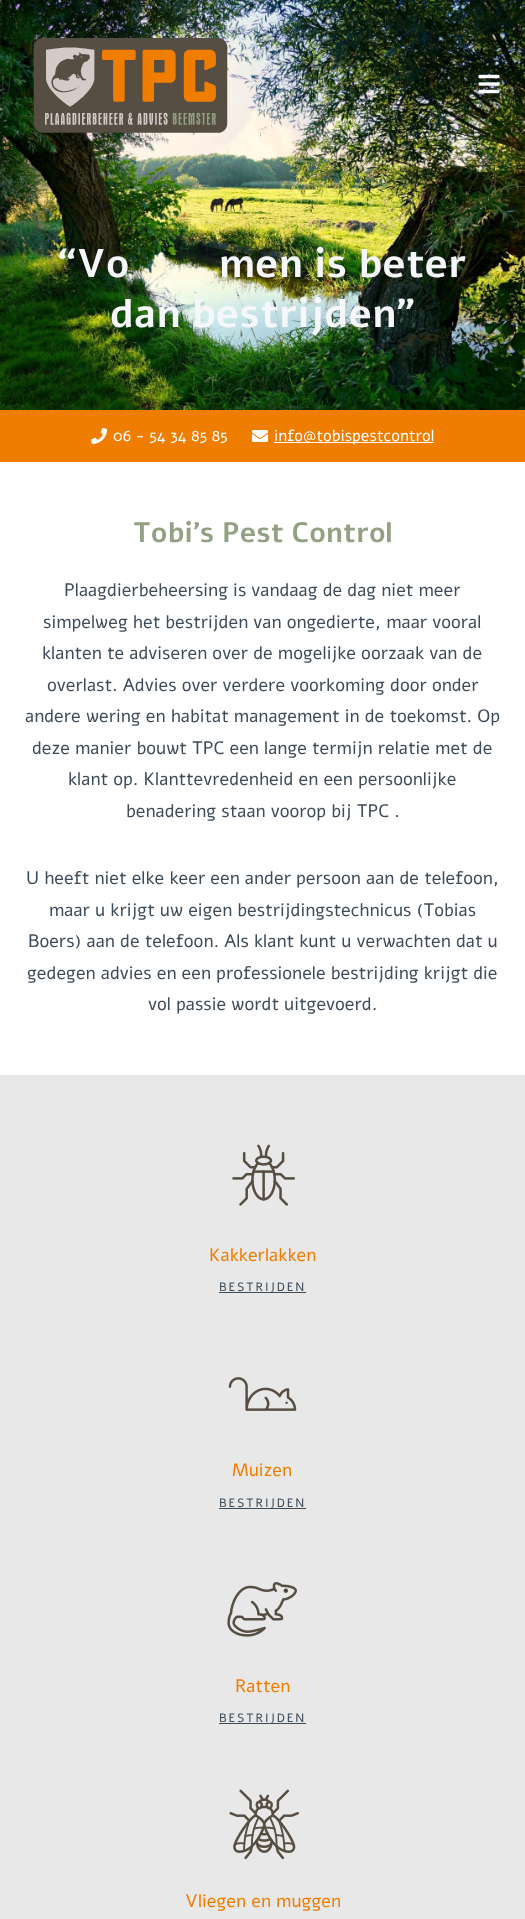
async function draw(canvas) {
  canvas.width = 525
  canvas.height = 1919
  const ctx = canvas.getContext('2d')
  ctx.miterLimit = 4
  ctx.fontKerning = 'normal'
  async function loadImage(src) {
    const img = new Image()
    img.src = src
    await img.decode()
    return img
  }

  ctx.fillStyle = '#fff'
  ctx.fillRect(0, 0, 525, 1919)
  ctx.drawImage(await loadImage('image0.png'), 0, 0, 525, 410)
  ctx.drawImage(await loadImage('image1.png'), 33, 38, 195, 95)
  ctx.drawImage(await loadImage('image2.png'), 478, 74, 22, 20)
  ctx.font = 'bold 40px Alef'
  ctx.fillStyle = '#f5f7fa'
  ctx.fillText('“Vo', 58, 277)
  ctx.fillText('men is beter', 218, 277)
  ctx.fillText('dan bestrijden"', 110, 327)
  ctx.fillStyle = '#ef7d00'
  ctx.fillRect(0, 410, 525, 52)
  ctx.drawImage(await loadImage('image3.png'), 91, 428, 16, 16)
  ctx.font = '16px Alef'
  ctx.fillStyle = '#fff'
  ctx.fillText('06 - 54 34 85 85', 113, 441)
  ctx.drawImage(await loadImage('image4.png'), 252, 430, 16, 12)
  ctx.fillRect(274, 442, 160, 1)
  ctx.fillText('info@tobispestcontrol', 274, 441)
  ctx.font = 'bold 28px Alef'
  ctx.fillStyle = '#92a184'
  ctx.fillText('Tobi’s Pest Control', 133, 542)
  ctx.font = '18px Alef'
  ctx.fillStyle = '#3e4c59'
  ctx.fillText('Plaagdierbeheersing is vandaag de dag niet meer', 64, 596)
  ctx.fillText('simpelweg het bestrijden van ongedierte, maar vooral', 43, 628)
  ctx.fillText('klanten te adviseren over de mogelijke oorzaak van de', 42, 659)
  ctx.fillText('overlast. Advies over verdere voorkoming door onder', 47, 691)
  ctx.fillText('andere wering en habitat management in de toekomst. Op', 25, 722)
  ctx.fillText('deze manier bouwt TPC een lange termijn relatie met de', 32, 754)
  ctx.fillText('klant op. Klanttevredenheid en een persoonlijke', 68, 785)
  ctx.fillText('benadering staan voorop bij TPC .', 126, 817)
  ctx.fillText('U heeft niet elke keer een ander persoon aan de telefoon,', 26, 884)
  ctx.fillText('maar u krijgt uw eigen bestrijdingstechnicus (Tobias', 49, 916)
  ctx.fillText('Boers) aan de telefoon. Als klant kunt u verwachten dat u', 28, 947)
  ctx.fillText('gedegen advies en een professionele bestrijding krijgt die', 27, 979)
  ctx.fillText('vol passie wordt uitgevoerd.', 148, 1010)
  ctx.fillStyle = '#e8e8e8'
  ctx.fillRect(0, 1075, 525, 844)
  ctx.drawImage(await loadImage('image5.png'), 232, 1144, 63, 62)
  ctx.fillStyle = '#ef7d00'
  ctx.fillText('Kakkerlakken', 209, 1261)
  ctx.fillStyle = '#3e4c59'
  ctx.fillRect(219, 1292, 87, 1)
  ctx.letterSpacing = '2px'
  ctx.font = '12px Alef'
  ctx.fillText('BESTRIJDEN', 219, 1291)
  ctx.drawImage(await loadImage('image6.png'), 228, 1377, 69, 34)
  ctx.letterSpacing = '0px'
  ctx.font = '18px Alef'
  ctx.fillStyle = '#ef7d00'
  ctx.fillText('Muizen', 232, 1476)
  ctx.fillStyle = '#3e4c59'
  ctx.fillRect(219, 1508, 87, 1)
  ctx.letterSpacing = '2px'
  ctx.font = '12px Alef'
  ctx.fillText('BESTRIJDEN', 219, 1507)
  ctx.drawImage(await loadImage('image7.png'), 227, 1582, 70, 55)
  ctx.letterSpacing = '0px'
  ctx.font = '18px Alef'
  ctx.fillStyle = '#ef7d00'
  ctx.fillText('Ratten', 235, 1692)
  ctx.fillStyle = '#3e4c59'
  ctx.fillRect(219, 1723, 87, 1)
  ctx.letterSpacing = '2px'
  ctx.font = '12px Alef'
  ctx.fillText('BESTRIJDEN', 219, 1722)
  ctx.drawImage(await loadImage('image8.png'), 229, 1789, 70, 71)
  ctx.letterSpacing = '0px'
  ctx.font = '18px Alef'
  ctx.fillStyle = '#ef7d00'
  ctx.fillText('Vliegen en muggen', 185, 1907)
}

draw(document.querySelector('canvas'))
